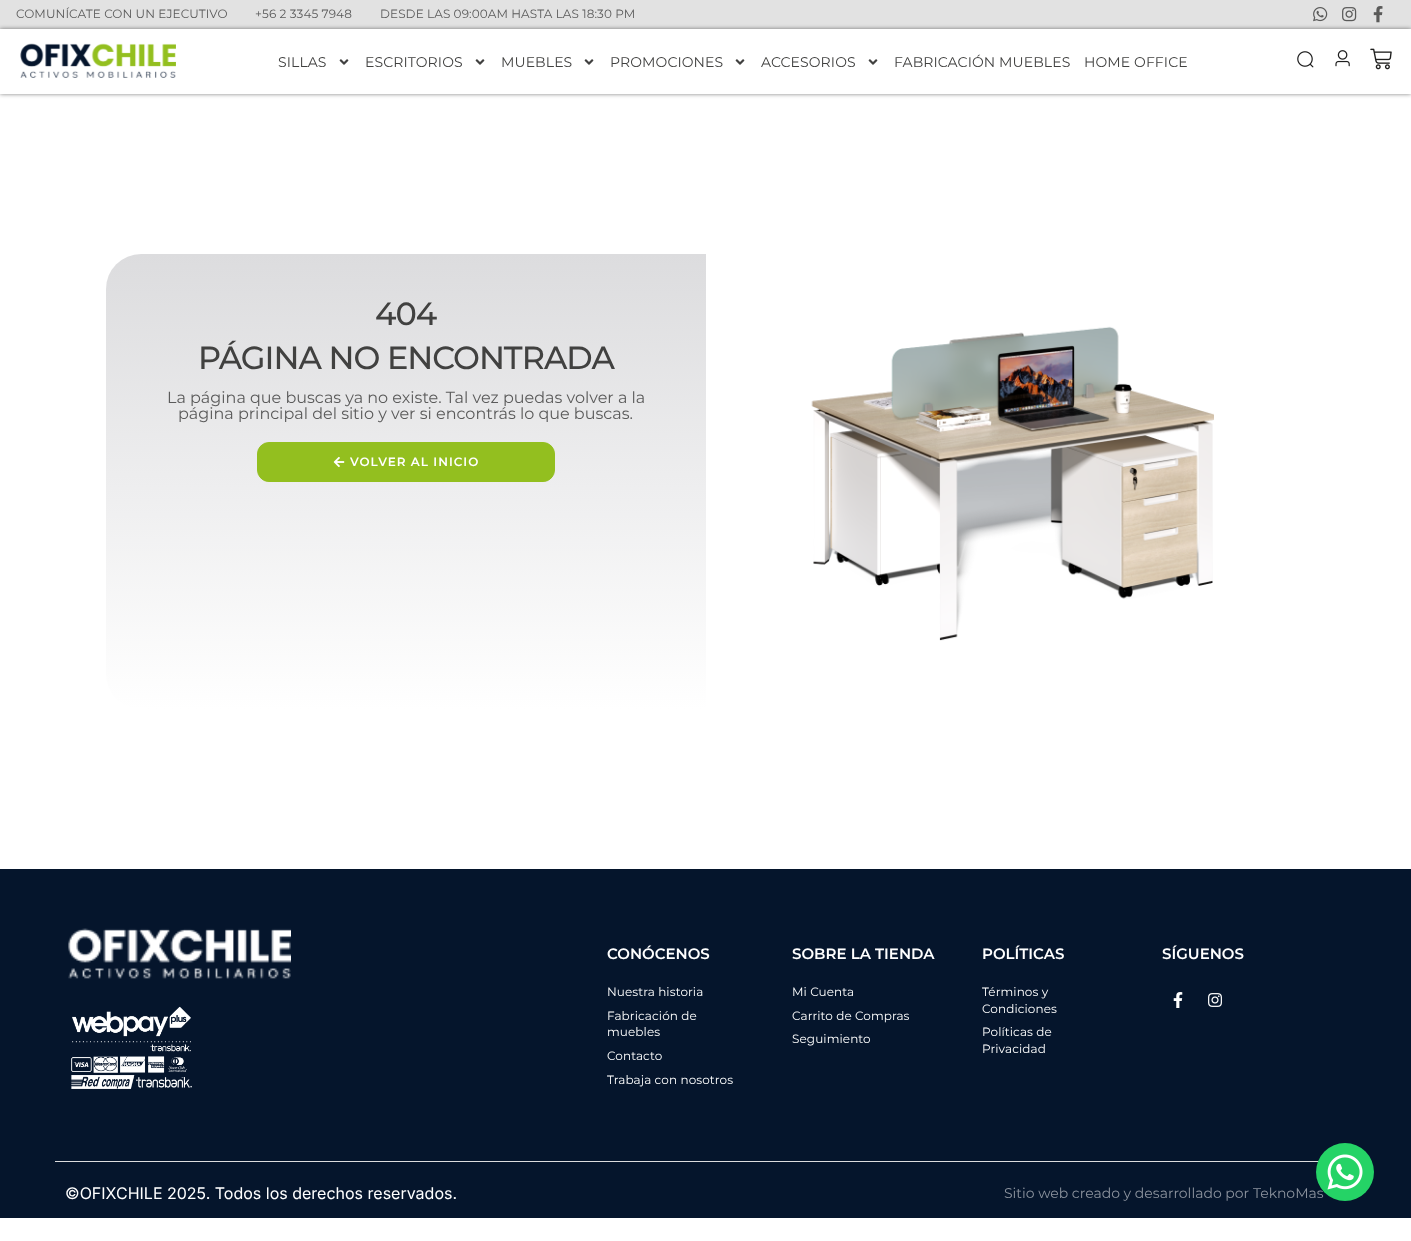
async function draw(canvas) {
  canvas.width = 1411
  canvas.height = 1241
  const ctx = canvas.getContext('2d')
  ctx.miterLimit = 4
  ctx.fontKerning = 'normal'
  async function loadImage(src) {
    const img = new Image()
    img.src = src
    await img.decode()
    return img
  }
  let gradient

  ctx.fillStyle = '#fff'
  ctx.fillRect(0, 0, 1411, 1241)
  ctx.fillStyle = '#e2e2e2'
  ctx.fillRect(0, 0, 1411, 29)
  ctx.letterSpacing = '0.1px'
  ctx.font = '12px Montserrat'
  ctx.fillStyle = '#5b5b5b'
  ctx.fillText('COMUNÍCATE CON UN EJECUTIVO', 16, 18)
  ctx.fillText('+56 2 3345 7948', 255, 18)
  ctx.fillText('DESDE LAS 09:00AM HASTA LAS 18:30 PM', 380, 18)
  ctx.drawImage(await loadImage('image0.png'), 1313, 7, 15, 15)
  ctx.drawImage(await loadImage('image1.png'), 1342, 7, 15, 15)
  ctx.drawImage(await loadImage('image2.png'), 1373, 6, 10, 17)
  ctx.save()
  ctx.beginPath()
  ctx.moveTo(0, 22)
  ctx.lineTo(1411, 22)
  ctx.lineTo(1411, 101)
  ctx.lineTo(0, 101)
  ctx.closePath()
  ctx.moveTo(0, 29)
  ctx.lineTo(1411, 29)
  ctx.lineTo(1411, 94)
  ctx.lineTo(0, 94)
  ctx.closePath()
  ctx.clip('evenodd')
  ctx.fillStyle = '#00000080'
  ctx.filter = 'blur(2px)'
  ctx.beginPath()
  ctx.rect(0, 29, 1411, 65)
  ctx.fill()
  ctx.filter = 'none'
  ctx.restore()
  ctx.drawImage(await loadImage('image3.png'), 20, 43, 156, 35)
  ctx.font = '14px Montserrat'
  ctx.fillStyle = '#414140'
  ctx.fillText('SILLAS', 278, 67)
  ctx.drawImage(await loadImage('image4.png'), 339, 59, 10, 6)
  ctx.fillText('ESCRITORIOS', 365, 67)
  ctx.drawImage(await loadImage('image4.png'), 475, 59, 10, 6)
  ctx.fillText('MUEBLES', 501, 67)
  ctx.drawImage(await loadImage('image4.png'), 584, 59, 10, 6)
  ctx.fillText('PROMOCIONES', 610, 67)
  ctx.drawImage(await loadImage('image4.png'), 735, 59, 10, 6)
  ctx.fillText('ACCESORIOS', 761, 67)
  ctx.drawImage(await loadImage('image4.png'), 868, 59, 10, 6)
  ctx.fillText('FABRICACIÓN MUEBLES', 894, 67)
  ctx.fillText('HOME OFFICE', 1084, 67)
  ctx.drawImage(await loadImage('image5.png'), 1297, 51, 17, 17)
  ctx.drawImage(await loadImage('image6.png'), 1335, 50, 15, 17)
  ctx.drawImage(await loadImage('image7.png'), 1370, 48, 22, 22)
  gradient = ctx.createLinearGradient(406, 254, 406, 709)
  gradient.addColorStop(0, '#dcdcde')
  gradient.addColorStop(1, '#fff')
  ctx.fillStyle = gradient
  ctx.beginPath()
  ctx.roundRect(106, 254, 600, 455, [35, 0, 0, 35])
  ctx.fill()
  ctx.letterSpacing = '-1px'
  ctx.font = '500 32px Montserrat'
  ctx.fillStyle = '#414140'
  ctx.fillText('404', 375, 325)
  ctx.fillText('PÁGINA NO ENCONTRADA', 198, 369)
  ctx.letterSpacing = '0px'
  ctx.font = '16px Montserrat'
  ctx.fillStyle = '#5b5b5b'
  ctx.fillText('La página que buscas ya no existe. Tal vez puedas volver a la', 167, 403)
  ctx.fillText('página principal del sitio y ver si encontrás lo que buscas.', 178, 419)
  ctx.fillStyle = '#93bf1f'
  ctx.beginPath()
  ctx.roundRect(257.5, 442.5, 297, 39, 11.5)
  ctx.fill()
  ctx.strokeStyle = '#93bf1f'
  ctx.stroke()
  ctx.drawImage(await loadImage('image8.png'), 333, 456, 12, 12)
  ctx.letterSpacing = '1px'
  ctx.font = '600 12px Montserrat'
  ctx.fillStyle = '#fff'
  ctx.fillText('VOLVER AL INICIO', 350, 466)
  ctx.drawImage(await loadImage('image9.png'), 811, 326, 403, 315)
  ctx.fillStyle = '#05152c'
  ctx.fillRect(0, 869, 1411, 349)
  ctx.fillStyle = '#dcdcde'
  ctx.fillRect(55, 1161, 1264, 1)
  ctx.drawImage(await loadImage('image10.png'), 68, 928, 223, 51)
  ctx.drawImage(await loadImage('image11.png'), 71, 1006, 121, 83)
  ctx.letterSpacing = '0px'
  ctx.font = '600 15px Montserrat'
  ctx.fillStyle = '#fff'
  ctx.fillText('CONÓCENOS', 607, 959)
  ctx.letterSpacing = '0.1px'
  ctx.font = '12px Montserrat'
  ctx.fillText('Nuestra historia', 607, 996)
  ctx.fillText('Fabricación de', 607, 1020)
  ctx.fillText('muebles', 607, 1036)
  ctx.fillText('Contacto', 607, 1060)
  ctx.fillText('Trabaja con nosotros', 607, 1084)
  ctx.letterSpacing = '0px'
  ctx.font = '600 15px Montserrat'
  ctx.fillText('SOBRE LA TIENDA', 792, 959)
  ctx.letterSpacing = '0.1px'
  ctx.font = '12px Montserrat'
  ctx.fillText('Mi Cuenta', 792, 996)
  ctx.fillText('Carrito de Compras', 792, 1020)
  ctx.fillText('Seguimiento', 792, 1043)
  ctx.letterSpacing = '0px'
  ctx.font = '600 15px Montserrat'
  ctx.fillText('POLÍTICAS', 982, 959)
  ctx.letterSpacing = '0.1px'
  ctx.font = '12px Montserrat'
  ctx.fillText('Términos y', 982, 996)
  ctx.fillText('Condiciones', 982, 1013)
  ctx.fillText('Políticas de', 982, 1036)
  ctx.fillText('Privacidad', 982, 1053)
  ctx.letterSpacing = '0px'
  ctx.font = '600 15px Montserrat'
  ctx.fillText('SÍGUENOS', 1162, 959)
  ctx.drawImage(await loadImage('image12.png'), 1173, 992, 10, 16)
  ctx.drawImage(await loadImage('image13.png'), 1208, 993, 14, 14)
  ctx.font = '16px Inter'
  ctx.fillText('©OFIXCHILE 2025. Todos los derechos reservados.', 65, 1199)
  ctx.font = '14px Montserrat'
  ctx.fillStyle = '#8c939e'
  ctx.fillText('Sitio web creado y desarrollado por TeknoMas', 1004, 1198)
  ctx.fillStyle = '#25d366'
  ctx.beginPath()
  ctx.arc(1345, 1172, 29, 0, 2 * Math.PI)
  ctx.fill()
  ctx.drawImage(await loadImage('image14.png'), 1327, 1154, 36, 36)
}

draw(document.querySelector('canvas'))
